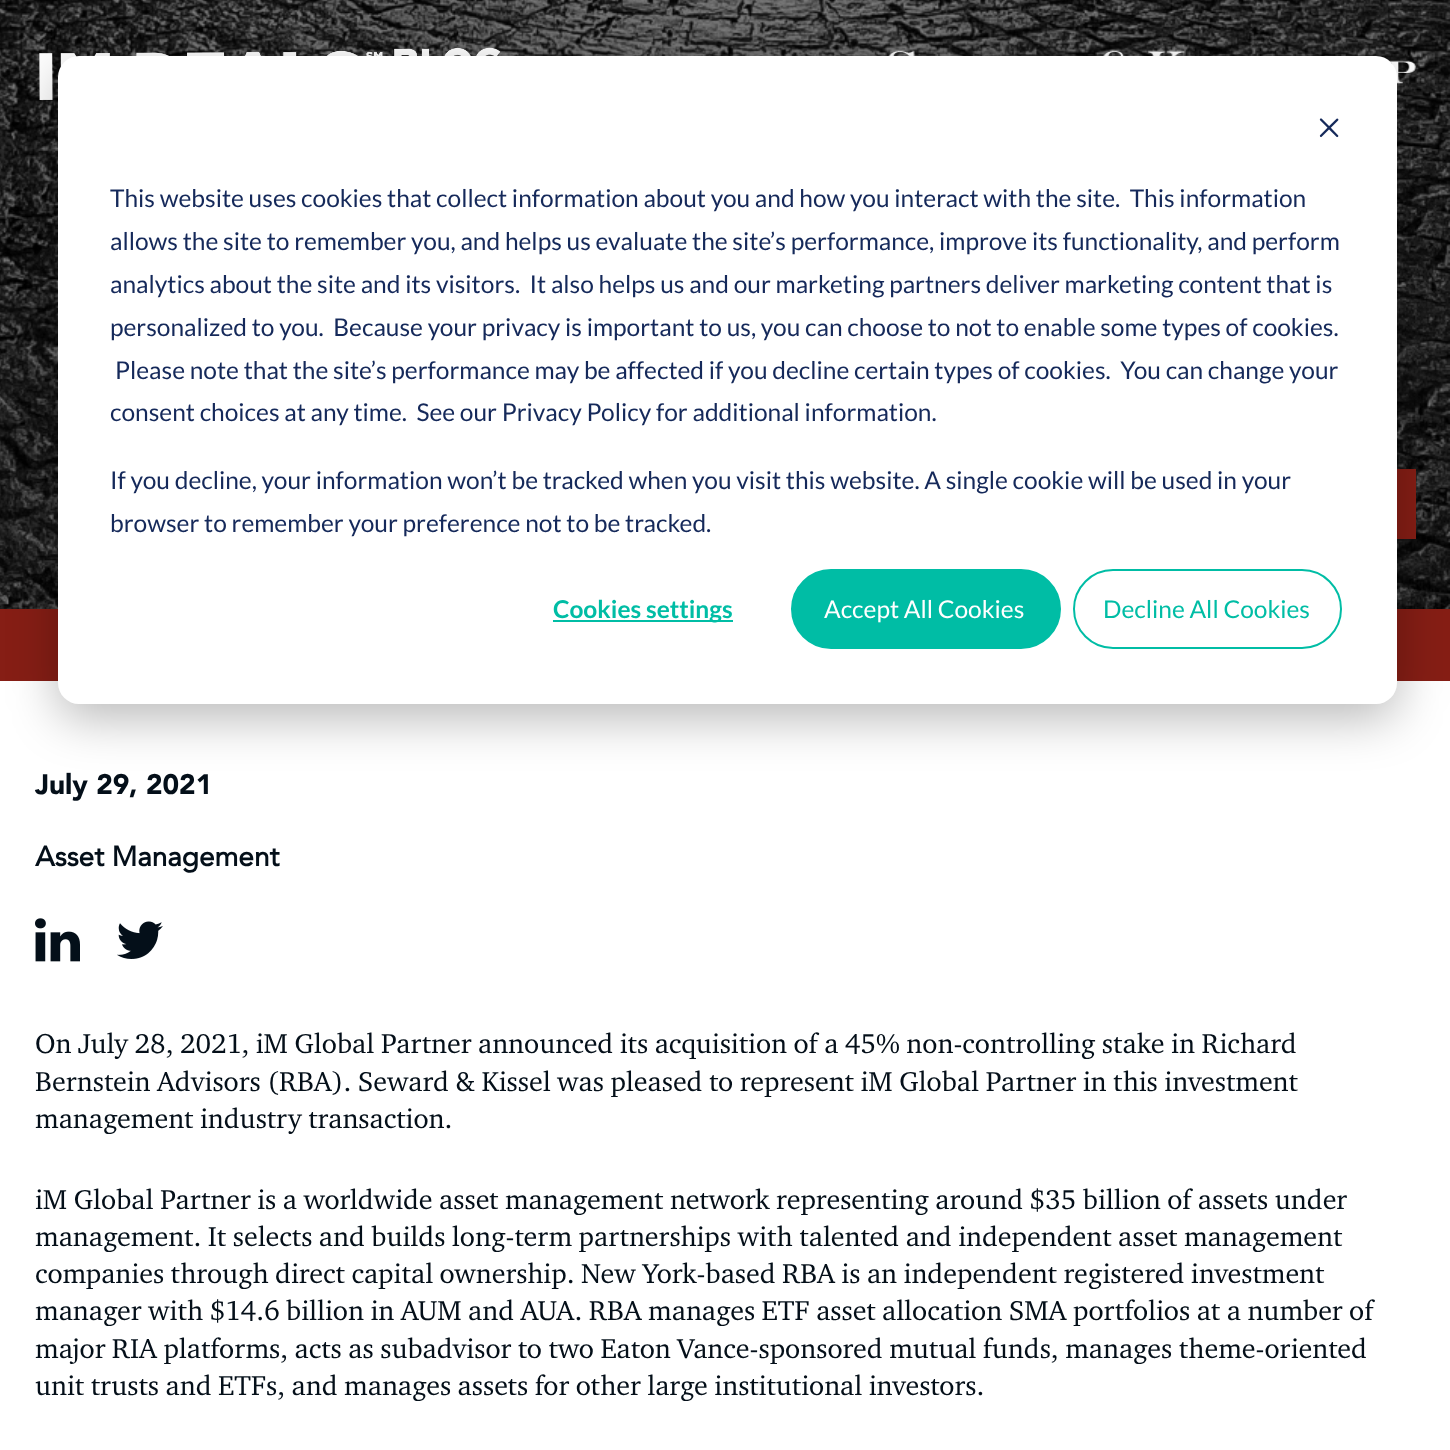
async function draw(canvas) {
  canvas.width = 1450
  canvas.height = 1450
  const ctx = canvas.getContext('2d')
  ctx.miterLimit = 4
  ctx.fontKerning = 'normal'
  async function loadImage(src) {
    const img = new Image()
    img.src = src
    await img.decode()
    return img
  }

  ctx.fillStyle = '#fff'
  ctx.fillRect(0, 0, 1450, 1450)
  ctx.drawImage(await loadImage('image1.png'), 0, 0, 1450, 609)
  ctx.drawImage(await loadImage('image2.png'), 39, 47, 462, 53)
  ctx.drawImage(await loadImage('image3.png'), 888, 50, 528, 34)
  ctx.fillStyle = '#861e15'
  ctx.fillRect(1397, 469, 19, 70)
  ctx.fillRect(0, 609, 1450, 72)
  ctx.fillStyle = '#00000047'
  ctx.filter = 'blur(24.5px)'
  ctx.beginPath()
  ctx.roundRect(58, 70, 1339, 648, 21)
  ctx.fill()
  ctx.filter = 'none'
  ctx.fillStyle = '#fff'
  ctx.beginPath()
  ctx.roundRect(58, 56, 1339, 648, 21)
  ctx.fill()
  ctx.drawImage(await loadImage('image0.png'), 1319, 118, 20, 20)
  ctx.font = '24.5px Lato'
  ctx.fillStyle = '#15295a'
  ctx.fillText('This website uses cookies that collect information about you and how you interact with the site.  This information', 110, 207)
  ctx.fillText('allows the site to remember you, and helps us evaluate the site’s performance, improve its functionality, and perform', 110, 250)
  ctx.fillText('analytics about the site and its visitors.  It also helps us and our marketing partners deliver marketing content that is', 110, 293)
  ctx.fillText('personalized to you.  Because your privacy is important to us, you can choose to not to enable some types of cookies.', 110, 336)
  ctx.fillText('Please note that the site’s performance may be affected if you decline certain types of cookies.  You can change your', 115, 379)
  ctx.fillText('consent choices at any time.  See our Privacy Policy for additional information.', 110, 421)
  ctx.fillText('If you decline, your information won’t be tracked when you visit this website. A single cookie will be used in your', 110, 489)
  ctx.fillText('browser to remember your preference not to be tracked.', 110, 532)
  ctx.fillStyle = '#00bda5'
  ctx.fillRect(553, 620, 180, 2)
  ctx.font = 'bold 24.5px Lato'
  ctx.fillText('Cookies settings', 553, 618)
  ctx.beginPath()
  ctx.roundRect(792, 570, 268, 78, 39)
  ctx.fill()
  ctx.strokeStyle = '#00bda5'
  ctx.lineWidth = 2
  ctx.stroke()
  ctx.font = '24.5px Lato'
  ctx.fillStyle = '#fff'
  ctx.fillText('Accept All Cookies', 824, 618)
  ctx.beginPath()
  ctx.roundRect(1074, 570, 267, 78, 39)
  ctx.stroke()
  ctx.fillStyle = '#00bda5'
  ctx.fillText('Decline All Cookies', 1103, 618)
  ctx.font = '900 28px Avenir'
  ctx.fillStyle = '#040f19'
  ctx.fillText('July 29, 2021', 35, 794)
  ctx.font = 'bold 28px Avenir'
  ctx.fillText('Asset Management', 35, 866)
  ctx.drawImage(await loadImage('image4.png'), 35, 918, 45, 44)
  ctx.drawImage(await loadImage('image5.png'), 117, 921, 46, 38)
  ctx.font = '28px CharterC'
  ctx.fillText('On July 28, 2021, iM Global Partner announced its acquisition of a 45% non-controlling stake in Richard', 35, 1053)
  ctx.fillText('Bernstein Advisors (RBA). Seward & Kissel was pleased to represent iM Global Partner in this investment', 35, 1091)
  ctx.fillText('management industry transaction.', 35, 1128)
  ctx.fillText('iM Global Partner is a worldwide asset management network representing around $35 billion of assets under', 35, 1209)
  ctx.fillText('management. It selects and builds long-term partnerships with talented and independent asset management', 35, 1246)
  ctx.fillText('companies through direct capital ownership. New York-based RBA is an independent registered investment', 35, 1283)
  ctx.fillText('manager with $14.6 billion in AUM and AUA. RBA manages ETF asset allocation SMA portfolios at a number of', 35, 1320)
  ctx.fillText('major RIA platforms, acts as subadvisor to two Eaton Vance-sponsored mutual funds, manages theme-oriented', 35, 1358)
  ctx.fillText('unit trusts and ETFs, and manages assets for other large institutional investors.', 35, 1395)
}

draw(document.querySelector('canvas'))
